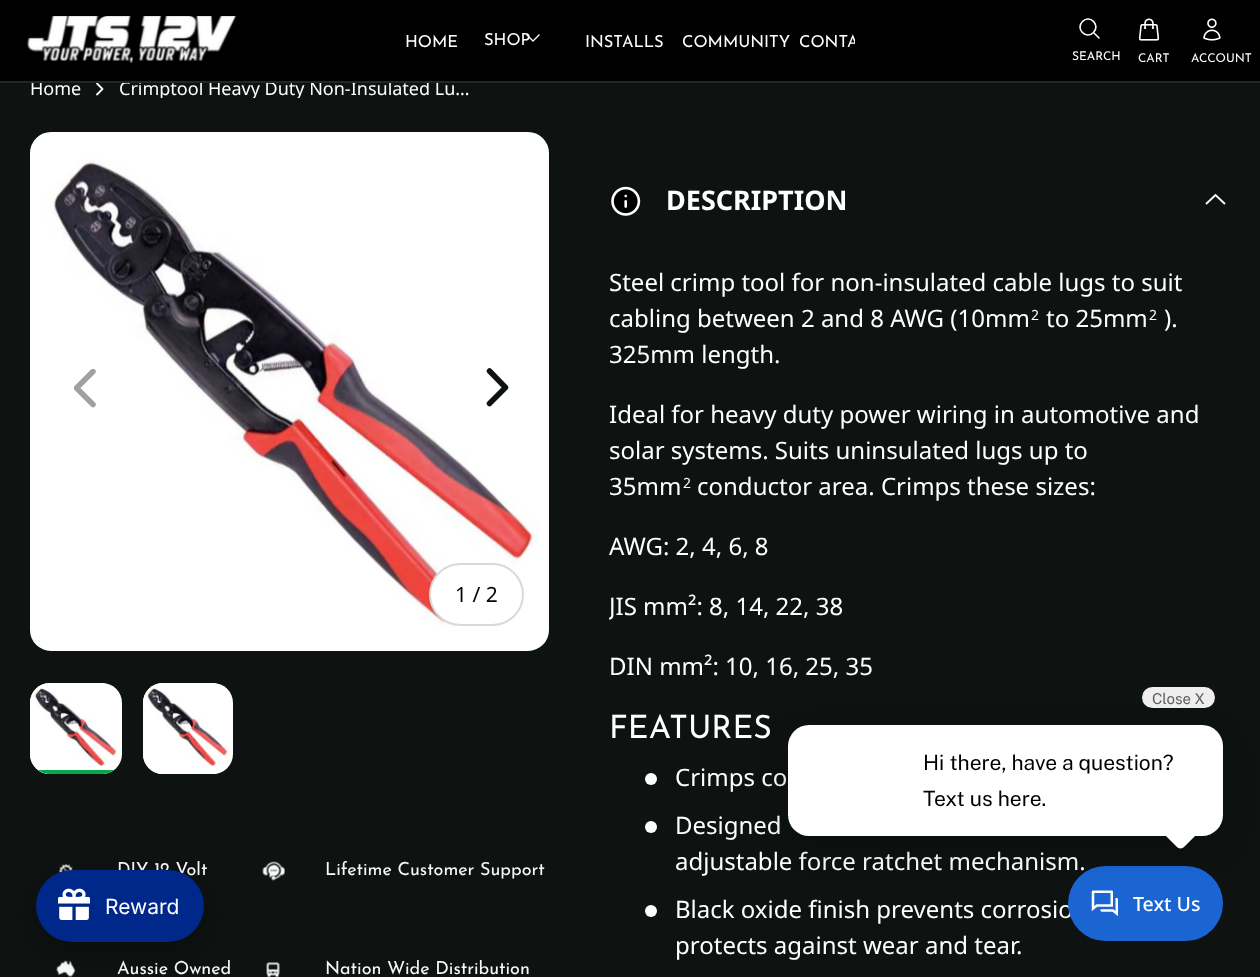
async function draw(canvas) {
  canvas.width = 1260
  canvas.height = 977
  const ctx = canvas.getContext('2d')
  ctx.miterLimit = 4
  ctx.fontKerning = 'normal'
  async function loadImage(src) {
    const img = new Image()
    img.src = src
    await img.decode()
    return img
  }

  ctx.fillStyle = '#0e1311'
  ctx.fillRect(0, 0, 1260, 977)
  ctx.fillStyle = '#000'
  ctx.fillRect(0, 0, 1260, 81)
  ctx.font = '18px Noto Sans'
  ctx.fillStyle = '#fff'
  ctx.fillText('Home', 30, 95)
  ctx.beginPath()
  ctx.moveTo(97, 94.5)
  ctx.lineTo(102.5, 89)
  ctx.lineTo(97, 83.5)
  ctx.strokeStyle = '#f2f9f6'
  ctx.lineWidth = 1.8
  ctx.lineCap = 'round'
  ctx.lineJoin = 'round'
  ctx.stroke()
  ctx.save()
  ctx.beginPath()
  ctx.rect(119, 80, 360, 18)
  ctx.clip()
  ctx.fillText('Crimptool Heavy Duty Non-Insulated Lu…', 119, 95)
  ctx.restore()
  ctx.fillStyle = '#262626'
  ctx.fillRect(0, 81, 1260, 2)
  ctx.drawImage(await loadImage('image0.png'), 27, 16, 210, 47)
  ctx.font = '16.5px Josefin Sans'
  ctx.fillStyle = '#fff'
  ctx.fillText('HOME', 405, 47)
  ctx.fillText('SHOP', 484, 45)
  ctx.beginPath()
  ctx.moveTo(539.5, 34.5)
  ctx.lineTo(533, 41)
  ctx.lineTo(526.5, 34.5)
  ctx.strokeStyle = '#fff'
  ctx.lineWidth = 1.3
  ctx.lineCap = 'butt'
  ctx.lineJoin = 'miter'
  ctx.stroke()
  ctx.fillText('INSTALLS', 585, 47)
  ctx.fillText('COMMUNITY', 682, 47)
  ctx.save()
  ctx.beginPath()
  ctx.rect(405, 20, 450, 42)
  ctx.clip()
  ctx.fillText('CONTA', 799, 47)
  ctx.restore()
  ctx.beginPath()
  ctx.moveTo(1099, 38)
  ctx.lineTo(1093.5, 32.5)
  ctx.moveTo(1093.5, 32.5)
  ctx.bezierCurveTo(1101, 25, 1089.5, 14, 1082.5, 21.5)
  ctx.bezierCurveTo(1075, 28.5, 1086, 40, 1093.5, 32.5)
  ctx.closePath()
  ctx.lineWidth = 1.6
  ctx.lineCap = 'round'
  ctx.lineJoin = 'round'
  ctx.stroke()
  ctx.font = '12px Josefin Sans'
  ctx.fillText('SEARCH', 1072, 60)
  ctx.drawImage(await loadImage('image1.png'), 1139, 18, 21, 23)
  ctx.fillText('CART', 1138, 62)
  ctx.drawImage(await loadImage('image2.png'), 1203, 18, 18, 23)
  ctx.fillText('ACCOUNT', 1191, 62)
  ctx.beginPath()
  ctx.roundRect(31, 133, 517, 517, 20)
  ctx.fill()
  ctx.lineWidth = 2
  ctx.lineJoin = 'miter'
  ctx.stroke()
  ctx.drawImage(await loadImage('image3.png'), 46, 159, 493, 469)
  ctx.save()
  ctx.beginPath()
  ctx.rect(74, 369, 22, 39)
  ctx.clip()
  ctx.beginPath()
  ctx.moveTo(93, 371.5)
  ctx.lineTo(76.5, 388)
  ctx.lineTo(93, 404.5)
  ctx.strokeStyle = '#9fa1a0'
  ctx.lineWidth = 5.5
  ctx.lineJoin = 'round'
  ctx.stroke()
  ctx.restore()
  ctx.beginPath()
  ctx.moveTo(489.5, 403.5)
  ctx.lineTo(505.5, 387.5)
  ctx.lineTo(489.5, 371)
  ctx.strokeStyle = '#0e1311'
  ctx.lineWidth = 5.5
  ctx.lineJoin = 'round'
  ctx.stroke()
  ctx.beginPath()
  ctx.roundRect(429, 563, 95, 63, 31.5)
  ctx.fill()
  ctx.beginPath()
  ctx.roundRect(430, 564, 93, 61, 30.5)
  ctx.strokeStyle = '#09030226'
  ctx.lineWidth = 2
  ctx.lineJoin = 'miter'
  ctx.stroke()
  ctx.font = '21px Noto Sans'
  ctx.fillStyle = '#090302'
  ctx.fillText('1 / 2', 455, 602)
  ctx.fillStyle = '#fff'
  ctx.beginPath()
  ctx.roundRect(30, 683, 92, 91, 20)
  ctx.fill()
  ctx.beginPath()
  ctx.roundRect(31, 684, 88, 89, 19)
  ctx.strokeStyle = '#fff'
  ctx.stroke()
  ctx.drawImage(await loadImage('image4.png'), 32, 684, 86, 86)
  ctx.save()
  ctx.beginPath()
  ctx.roundRect(30, 683, 92, 91, 20)
  ctx.clip()
  ctx.fillStyle = '#06a74f'
  ctx.fillRect(30, 770, 92, 4)
  ctx.restore()
  ctx.beginPath()
  ctx.roundRect(143, 683, 90, 91, 20)
  ctx.fill()
  ctx.beginPath()
  ctx.roundRect(144, 684, 86, 89, 19)
  ctx.stroke()
  ctx.drawImage(await loadImage('image5.png'), 145, 683, 84, 88)
  ctx.drawImage(await loadImage('image6.png'), 58, 863, 15, 10)
  ctx.font = '18px Josefin Sans'
  ctx.fillStyle = '#f8f8f8'
  ctx.fillText('DIY 12 Volt', 117, 875)
  ctx.drawImage(await loadImage('image7.png'), 56, 960, 20, 17)
  ctx.fillText('Aussie Owned', 117, 974)
  ctx.drawImage(await loadImage('image8.png'), 262, 861, 24, 20)
  ctx.fillText('Lifetime Customer Support', 325, 875)
  ctx.drawImage(await loadImage('image9.png'), 266, 962, 14, 15)
  ctx.fillText('Nation Wide Distribution', 325, 974)
  ctx.drawImage(await loadImage('image10.png'), 611, 186, 30, 30)
  ctx.font = 'bold 27px Noto Sans'
  ctx.fillStyle = '#fff'
  ctx.fillText('DESCRIPTION', 666, 210)
  ctx.beginPath()
  ctx.moveTo(1225, 204)
  ctx.lineTo(1215.5, 195)
  ctx.lineTo(1206, 204)
  ctx.lineWidth = 1.9
  ctx.lineCap = 'butt'
  ctx.stroke()
  ctx.font = '24px Noto Sans'
  ctx.fillText('Steel crimp tool for non-insulated cable lugs to suit', 609, 291)
  ctx.fillText('cabling between 2 and 8 AWG (10mm', 609, 327)
  ctx.font = '14px Noto Sans'
  ctx.fillText('2', 1031, 320)
  ctx.font = '24px Noto Sans'
  ctx.fillText('to 25mm', 1046, 327)
  ctx.font = '14px Noto Sans'
  ctx.fillText('2', 1149, 320)
  ctx.font = '24px Noto Sans'
  ctx.fillText(').', 1164, 327)
  ctx.fillText('325mm length.', 609, 363)
  ctx.fillText('Ideal for heavy duty power wiring in automotive and', 609, 423)
  ctx.fillText('solar systems. Suits uninsulated lugs up to', 609, 459)
  ctx.fillText('35mm', 609, 495)
  ctx.font = '14px Noto Sans'
  ctx.fillText('2', 683, 488)
  ctx.font = '24px Noto Sans'
  ctx.fillText('conductor area. Crimps these sizes:', 697, 495)
  ctx.fillText('AWG: 2, 4, 6, 8', 609, 555)
  ctx.save()
  ctx.beginPath()
  ctx.rect(609, 264, 621, 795)
  ctx.clip()
  ctx.fillText('JIS mm²: 8, 14, 22, 38', 609, 615)
  ctx.restore()
  ctx.fillText('DIN mm²: 10, 16, 25, 35', 609, 675)
  ctx.font = '32px Josefin Sans'
  ctx.fillText('FEATURES', 609, 738)
  ctx.beginPath()
  ctx.arc(651, 779, 6, 0, 2 * Math.PI)
  ctx.fill()
  ctx.font = '24px Noto Sans'
  ctx.fillText('Crimps co', 675, 786)
  ctx.beginPath()
  ctx.arc(651, 827, 6, 0, 2 * Math.PI)
  ctx.fill()
  ctx.fillText('Designed', 675, 834)
  ctx.fillText('adjustable force ratchet mechanism.', 675, 870)
  ctx.beginPath()
  ctx.arc(651, 911, 6, 0, 2 * Math.PI)
  ctx.fill()
  ctx.fillText('Black oxide finish prevents corrosio', 675, 918)
  ctx.fillText('protects against wear and tear.', 675, 954)
  ctx.fillStyle = '#00000040'
  ctx.filter = 'blur(9px)'
  ctx.beginPath()
  ctx.roundRect(36, 879, 168, 72, 36)
  ctx.fill()
  ctx.filter = 'none'
  ctx.fillStyle = '#00288b'
  ctx.beginPath()
  ctx.roundRect(36, 870, 168, 72, 36)
  ctx.fill()
  ctx.drawImage(await loadImage('image11.png'), 58, 888, 32, 32)
  ctx.font = '21px Inter'
  ctx.fillStyle = '#fff'
  ctx.fillText('Reward', 105, 914)
  ctx.fillStyle = '#1a65d2'
  ctx.beginPath()
  ctx.roundRect(1068, 866, 155, 75, 37.5)
  ctx.fill()
  ctx.drawImage(await loadImage('image12.png'), 1091, 890, 27, 26)
  ctx.fillStyle = '#0000003d'
  ctx.filter = 'blur(15px)'
  ctx.beginPath()
  ctx.roundRect(788, 737, 435, 111, 21)
  ctx.fill()
  ctx.filter = 'none'
  ctx.fillStyle = '#fff'
  ctx.beginPath()
  ctx.roundRect(788, 725, 435, 111, 21)
  ctx.fill()
  ctx.fillStyle = '#eee'
  ctx.beginPath()
  ctx.roundRect(1142, 687, 73, 21, 10.5)
  ctx.fill()
  ctx.font = '100 15px Public Sans'
  ctx.fillStyle = '#5d5d5d'
  ctx.fillText('Close X', 1152, 704)
  ctx.font = '100 21px Public Sans'
  ctx.fillStyle = '#000'
  ctx.fillText('Hi there, have a question?', 923, 770)
  ctx.fillText('Text us here.', 923, 806)
  ctx.fillStyle = '#fff'
  ctx.beginPath()
  ctx.moveTo(1184.5, 812.5)
  ctx.lineTo(1197.5, 825.5)
  ctx.bezierCurveTo(1200, 827.5, 1200, 831.5, 1197.5, 833.5)
  ctx.lineTo(1184.5, 846.5)
  ctx.bezierCurveTo(1182.5, 849, 1178.5, 849, 1176.5, 846.5)
  ctx.lineTo(1163.5, 833.5)
  ctx.bezierCurveTo(1161, 831.5, 1161, 827.5, 1163.5, 825.5)
  ctx.lineTo(1176.5, 812.5)
  ctx.bezierCurveTo(1178.5, 810, 1182.5, 810, 1184.5, 812.5)
  ctx.closePath()
  ctx.fill()
  ctx.font = '500 19.5px Noto Sans'
  ctx.fillText('Text Us', 1133, 911)
}

draw(document.querySelector('canvas'))
